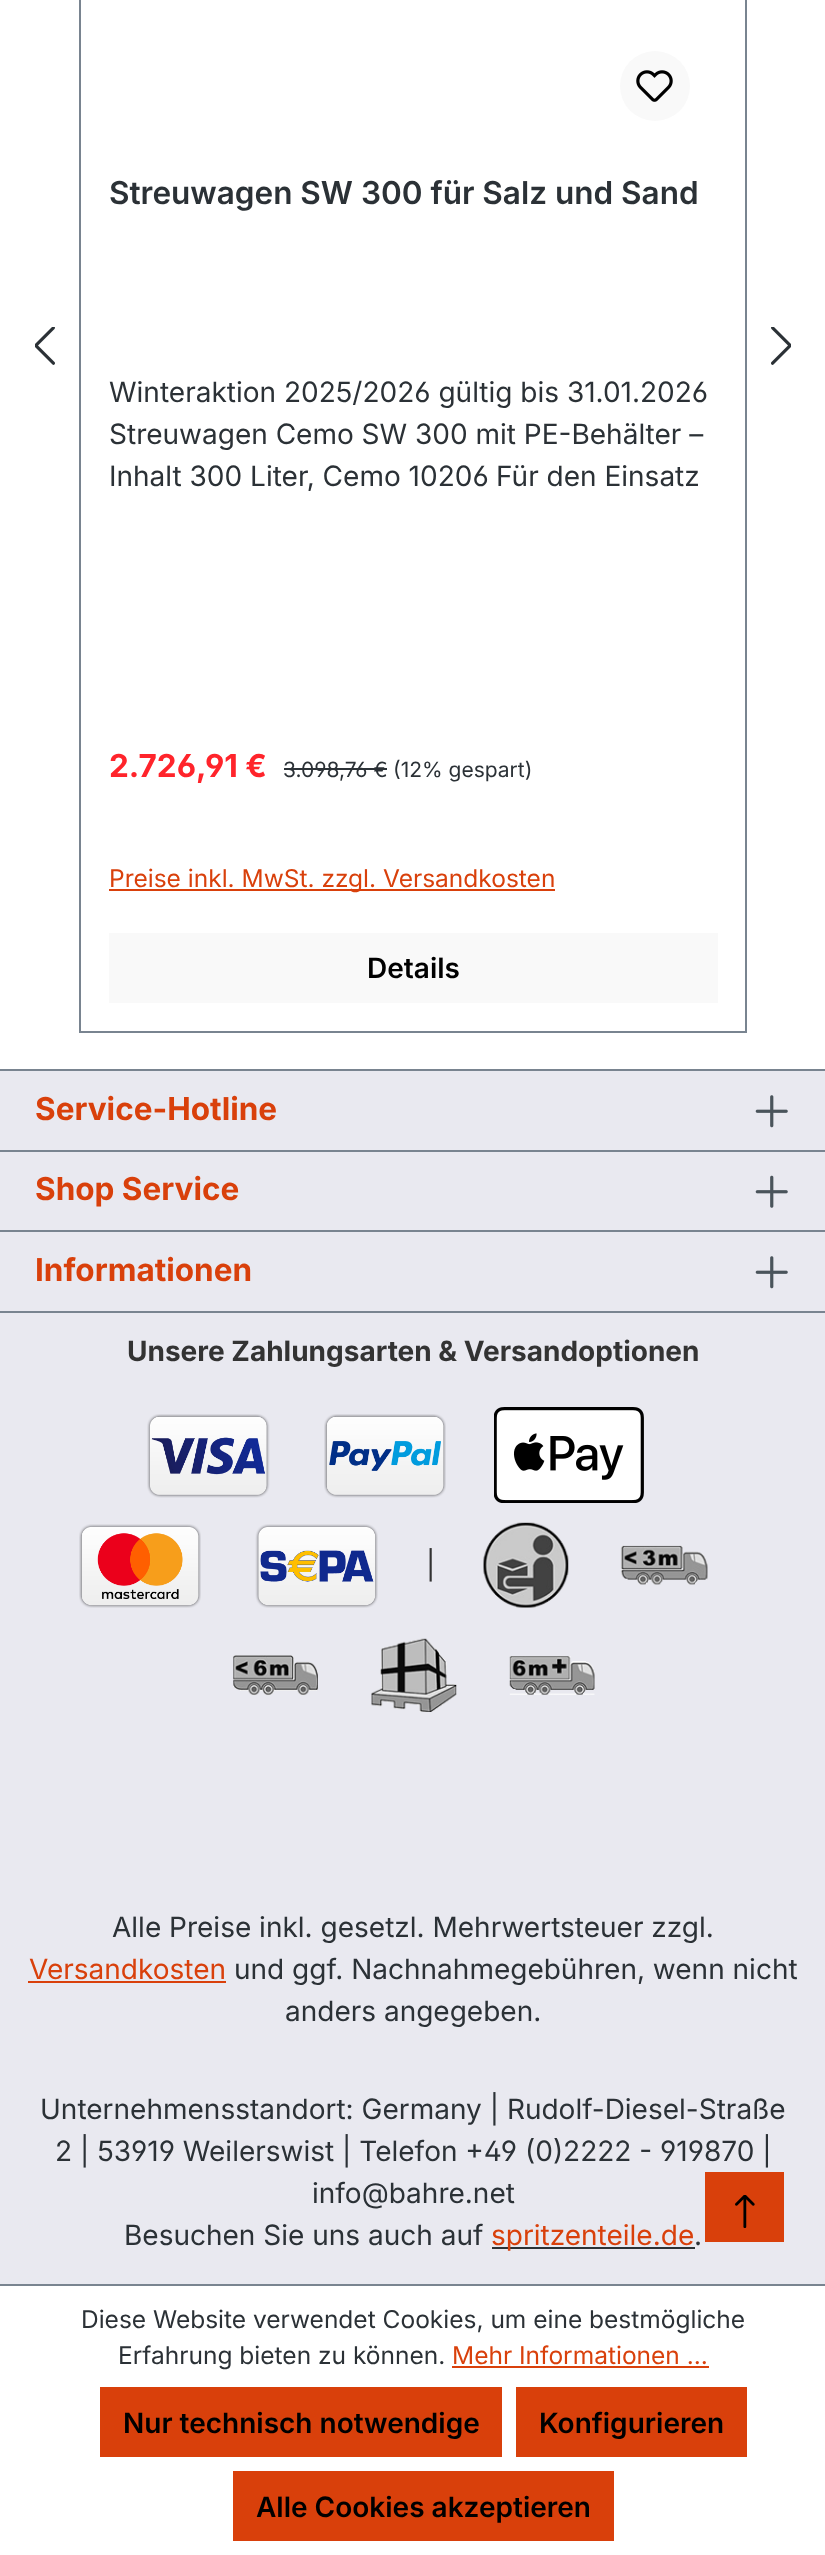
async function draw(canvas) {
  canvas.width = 825
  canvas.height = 2555
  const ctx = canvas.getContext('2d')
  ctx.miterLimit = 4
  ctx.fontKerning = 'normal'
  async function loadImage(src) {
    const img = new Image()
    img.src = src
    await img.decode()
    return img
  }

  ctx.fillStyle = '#fff'
  ctx.fillRect(0, 0, 825, 2555)
  ctx.strokeStyle = '#798490'
  ctx.lineWidth = 2
  ctx.strokeRect(80, -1, 666, 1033)
  ctx.fillStyle = '#f9f9f9'
  ctx.beginPath()
  ctx.arc(655, 86, 35, 0, 2 * Math.PI)
  ctx.fill()
  ctx.drawImage(await loadImage('image0.png'), 636, 70, 37, 32)
  ctx.font = '600 31.5px Inter'
  ctx.fillStyle = '#2b3136'
  ctx.fillText('Streuwagen SW 300 für Salz und Sand', 109, 204)
  ctx.font = '28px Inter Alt'
  ctx.fillText('Winteraktion 2025/2026 gültig bis 31.01.2026', 109, 402)
  ctx.font = '28px Inter'
  ctx.fillText('Streuwagen Cemo SW 300 mit PE-Behälter –', 109, 444)
  ctx.font = '28px Inter Alt'
  ctx.fillText('Inhalt 300 Liter, Cemo 10206', 109, 486)
  ctx.font = '28px Inter'
  ctx.fillText('Für den Einsatz', 496, 486)
  ctx.font = 'bold 31.5px Inter Alt'
  ctx.fillStyle = '#ff242b'
  ctx.fillText('2.726,91 €', 109, 777)
  ctx.font = '21px Inter Alt'
  ctx.fillStyle = '#2b3136'
  ctx.fillText('3.098,76 €', 283, 777)
  ctx.fillRect(284, 768, 103, 2)
  ctx.font = '21px Inter'
  ctx.fillText('(12% gespart)', 393, 777)
  ctx.fillStyle = '#d9400b'
  ctx.fillRect(109, 889, 446, 2)
  ctx.font = '24.5px Inter'
  ctx.fillText('Preise inkl. MwSt. zzgl. Versandkosten', 109, 887)
  ctx.fillStyle = '#f9f9f9'
  ctx.fillRect(109, 933, 609, 70)
  ctx.font = '600 28px Inter'
  ctx.fillStyle = '#000'
  ctx.fillText('Details', 367, 978)
  ctx.save()
  ctx.beginPath()
  ctx.rect(35, 327, 28, 39)
  ctx.clip()
  ctx.fillStyle = '#2b3136'
  ctx.beginPath()
  ctx.moveTo(38, 345.5)
  ctx.lineTo(54.5, 362)
  ctx.bezierCurveTo(55.5, 363, 55, 364.5, 53.5, 365)
  ctx.lineTo(52.5, 364.5)
  ctx.lineTo(34.5, 346.5)
  ctx.lineTo(34, 345.5)
  ctx.lineTo(34.5, 344.5)
  ctx.lineTo(52.5, 326.5)
  ctx.lineTo(53.5, 326.5)
  ctx.bezierCurveTo(55, 326.5, 55.5, 328, 54.5, 329)
  ctx.closePath()
  ctx.fill('evenodd')
  ctx.restore()
  ctx.save()
  ctx.beginPath()
  ctx.rect(763, 327, 28, 39)
  ctx.clip()
  ctx.fillStyle = '#2b3136'
  ctx.beginPath()
  ctx.moveTo(788, 345.5)
  ctx.lineTo(771.5, 362)
  ctx.bezierCurveTo(770.5, 363, 771, 364.5, 772.5, 365)
  ctx.lineTo(773.5, 364.5)
  ctx.lineTo(791.5, 346.5)
  ctx.lineTo(792, 345.5)
  ctx.lineTo(791.5, 344.5)
  ctx.lineTo(773.5, 326.5)
  ctx.lineTo(772.5, 326.5)
  ctx.bezierCurveTo(771, 326.5, 770.5, 328, 771.5, 329)
  ctx.closePath()
  ctx.fill('evenodd')
  ctx.restore()
  ctx.fillStyle = '#e9e9f0'
  ctx.fillRect(0, 1071, 825, 1213)
  ctx.fillStyle = '#798490'
  ctx.fillRect(0, 1069, 825, 2)
  ctx.fillRect(0, 1150, 825, 2)
  ctx.font = 'bold 31.5px Inter'
  ctx.fillStyle = '#d9400b'
  ctx.fillText('Service-Hotline', 35, 1120)
  ctx.drawImage(await loadImage('image1.png'), 755, 1095, 33, 33)
  ctx.fillStyle = '#798490'
  ctx.fillRect(0, 1230, 825, 2)
  ctx.fillStyle = '#d9400b'
  ctx.fillText('Shop Service', 35, 1200)
  ctx.drawImage(await loadImage('image2.png'), 755, 1175, 33, 33)
  ctx.fillStyle = '#798490'
  ctx.fillRect(0, 1311, 825, 2)
  ctx.fillStyle = '#d9400b'
  ctx.fillText('Informationen', 35, 1281)
  ctx.drawImage(await loadImage('image1.png'), 755, 1256, 33, 33)
  ctx.font = 'bold 28px Inter'
  ctx.fillStyle = '#333'
  ctx.fillText('Unsere Zahlungsarten & Versandoptionen', 127, 1361)
  ctx.drawImage(await loadImage('image3.png'), 147, 1414, 123, 84)
  ctx.drawImage(await loadImage('image4.png'), 324, 1414, 122, 84)
  ctx.drawImage(await loadImage('image5.png'), 494, 1407, 150, 96)
  ctx.drawImage(await loadImage('image6.png'), 79, 1524, 122, 84)
  ctx.drawImage(await loadImage('image7.png'), 255, 1524, 123, 84)
  ctx.font = '28px Inter'
  ctx.fillText('|', 426, 1575)
  ctx.drawImage(await loadImage('image8.png'), 483, 1522, 86, 86)
  ctx.drawImage(await loadImage('image9.png'), 620, 1545, 88, 40)
  ctx.drawImage(await loadImage('image10.png'), 233, 1655, 85, 41)
  ctx.drawImage(await loadImage('image11.png'), 371, 1638, 86, 74)
  ctx.drawImage(await loadImage('image12.png'), 509, 1656, 86, 39)
  ctx.fillStyle = '#2b3136'
  ctx.fillText('Alle Preise inkl. gesetzl. Mehrwertsteuer zzgl.', 112, 1937)
  ctx.fillStyle = '#d9400b'
  ctx.fillText('Versandkosten', 29, 1979)
  ctx.fillRect(28, 1981, 198, 2)
  ctx.fillStyle = '#2b3136'
  ctx.fillText('und ggf. Nachnahmegebühren, wenn nicht', 234, 1979)
  ctx.fillText('anders angegeben.', 285, 2021)
  ctx.fillText('Unternehmensstandort: Germany | Rudolf-Diesel-Straße', 40, 2119)
  ctx.font = '28px Inter Alt'
  ctx.fillText('2 | 53919 Weilerswist | Telefon +49 (0)2222 - 919870 |', 55, 2161)
  ctx.font = '28px Inter'
  ctx.fillText('info@bahre.net', 312, 2203)
  ctx.fillText('Besuchen Sie uns auch auf', 124, 2245)
  ctx.fillRect(492, 2247, 203, 2)
  ctx.fillStyle = '#d9400b'
  ctx.fillText('spritzenteile.de', 491, 2245)
  ctx.fillStyle = '#2b3136'
  ctx.fillText('.', 694, 2245)
  ctx.fillStyle = '#d9400b'
  ctx.fillRect(705, 2172, 79, 70)
  ctx.drawImage(await loadImage('image13.png'), 735, 2195, 20, 33)
  ctx.fillStyle = '#798490'
  ctx.fillRect(0, 2284, 825, 2)
  ctx.font = '24.5px Inter'
  ctx.fillStyle = '#2b3136'
  ctx.fillText('Diese Website verwendet Cookies, um eine bestmögliche', 81, 2328)
  ctx.fillText('Erfahrung bieten zu können.', 118, 2364)
  ctx.fillStyle = '#d9400b'
  ctx.fillText('Mehr Informationen ...', 452, 2364)
  ctx.fillRect(452, 2366, 257, 2)
  ctx.fillRect(100, 2387, 402, 70)
  ctx.font = '600 28px Inter'
  ctx.fillStyle = '#000'
  ctx.fillText('Nur technisch notwendige', 123, 2433)
  ctx.fillStyle = '#d9400b'
  ctx.fillRect(516, 2387, 231, 70)
  ctx.fillStyle = '#000'
  ctx.fillText('Konfigurieren', 539, 2433)
  ctx.fillStyle = '#d9400b'
  ctx.fillRect(233, 2471, 381, 70)
  ctx.fillStyle = '#000'
  ctx.fillText('Alle Cookies akzeptieren', 256, 2517)
}

draw(document.querySelector('canvas'))
